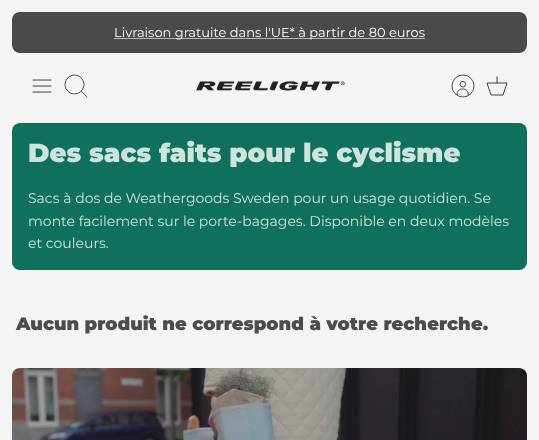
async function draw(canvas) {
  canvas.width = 539
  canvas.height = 440
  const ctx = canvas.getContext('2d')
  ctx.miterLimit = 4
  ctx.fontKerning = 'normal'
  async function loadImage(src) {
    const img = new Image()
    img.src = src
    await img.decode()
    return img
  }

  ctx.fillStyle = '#f4f4f4'
  ctx.fillRect(0, 0, 539, 440)
  ctx.fillStyle = '#4a4a4a'
  ctx.beginPath()
  ctx.roundRect(12, 12, 515, 41, 8)
  ctx.fill()
  ctx.fillStyle = '#b7b7b7'
  ctx.fillRect(114, 38, 311, 1)
  ctx.font = '13px Montserrat'
  ctx.fillStyle = '#fff'
  ctx.fillText('Livraison gratuite dans l\'UE* à partir de 80 euros', 114, 37)
  ctx.drawImage(await loadImage('image0.png'), 32, 79, 20, 14)
  ctx.beginPath()
  ctx.arc(74.5, 84.5, 9.5, 0, 2 * Math.PI)
  ctx.strokeStyle = '#3c4043'
  ctx.lineWidth = 0.9
  ctx.stroke()
  ctx.beginPath()
  ctx.moveTo(81.5, 91.5)
  ctx.lineTo(87, 97)
  ctx.lineCap = 'square'
  ctx.stroke()
  ctx.drawImage(await loadImage('image1.png'), 196, 81, 149, 10)
  ctx.beginPath()
  ctx.moveTo(468, 96)
  ctx.bezierCurveTo(470.5, 87, 455, 86.5, 457.5, 95.5)
  ctx.lineCap = 'butt'
  ctx.stroke()
  ctx.beginPath()
  ctx.arc(462.9, 84.2, 2.8, 0, 2 * Math.PI)
  ctx.stroke()
  ctx.beginPath()
  ctx.arc(463, 86, 11, 0, 2 * Math.PI)
  ctx.stroke()
  ctx.beginPath()
  ctx.moveTo(487, 83)
  ctx.lineTo(507, 83)
  ctx.lineTo(503, 95)
  ctx.lineTo(491, 95)
  ctx.closePath()
  ctx.lineWidth = 1
  ctx.stroke()
  ctx.beginPath()
  ctx.moveTo(497, 83)
  ctx.lineTo(497, 77)
  ctx.lineCap = 'square'
  ctx.stroke()
  ctx.fillStyle = '#0f715b'
  ctx.beginPath()
  ctx.roundRect(12, 123, 515, 147, 8)
  ctx.fill()
  ctx.font = '900 26px Montserrat'
  ctx.fillStyle = '#cfe3de'
  ctx.fillText('Des sacs faits pour le cyclisme', 28, 162)
  ctx.font = '14px Montserrat'
  ctx.fillText('Sacs à dos de Weathergoods Sweden pour un usage quotidien. Se', 28, 203)
  ctx.fillText('monte facilement sur le porte-bagages. Disponible en deux modèles', 28, 226)
  ctx.fillText('et couleurs.', 28, 248)
  ctx.font = '900 18px Montserrat'
  ctx.fillStyle = '#4c4c4b'
  ctx.fillText('Aucun produit ne correspond à votre recherche.', 16, 330)
  ctx.drawImage(await loadImage('image2.png'), 12, 368, 515, 72)
}

draw(document.querySelector('canvas'))
